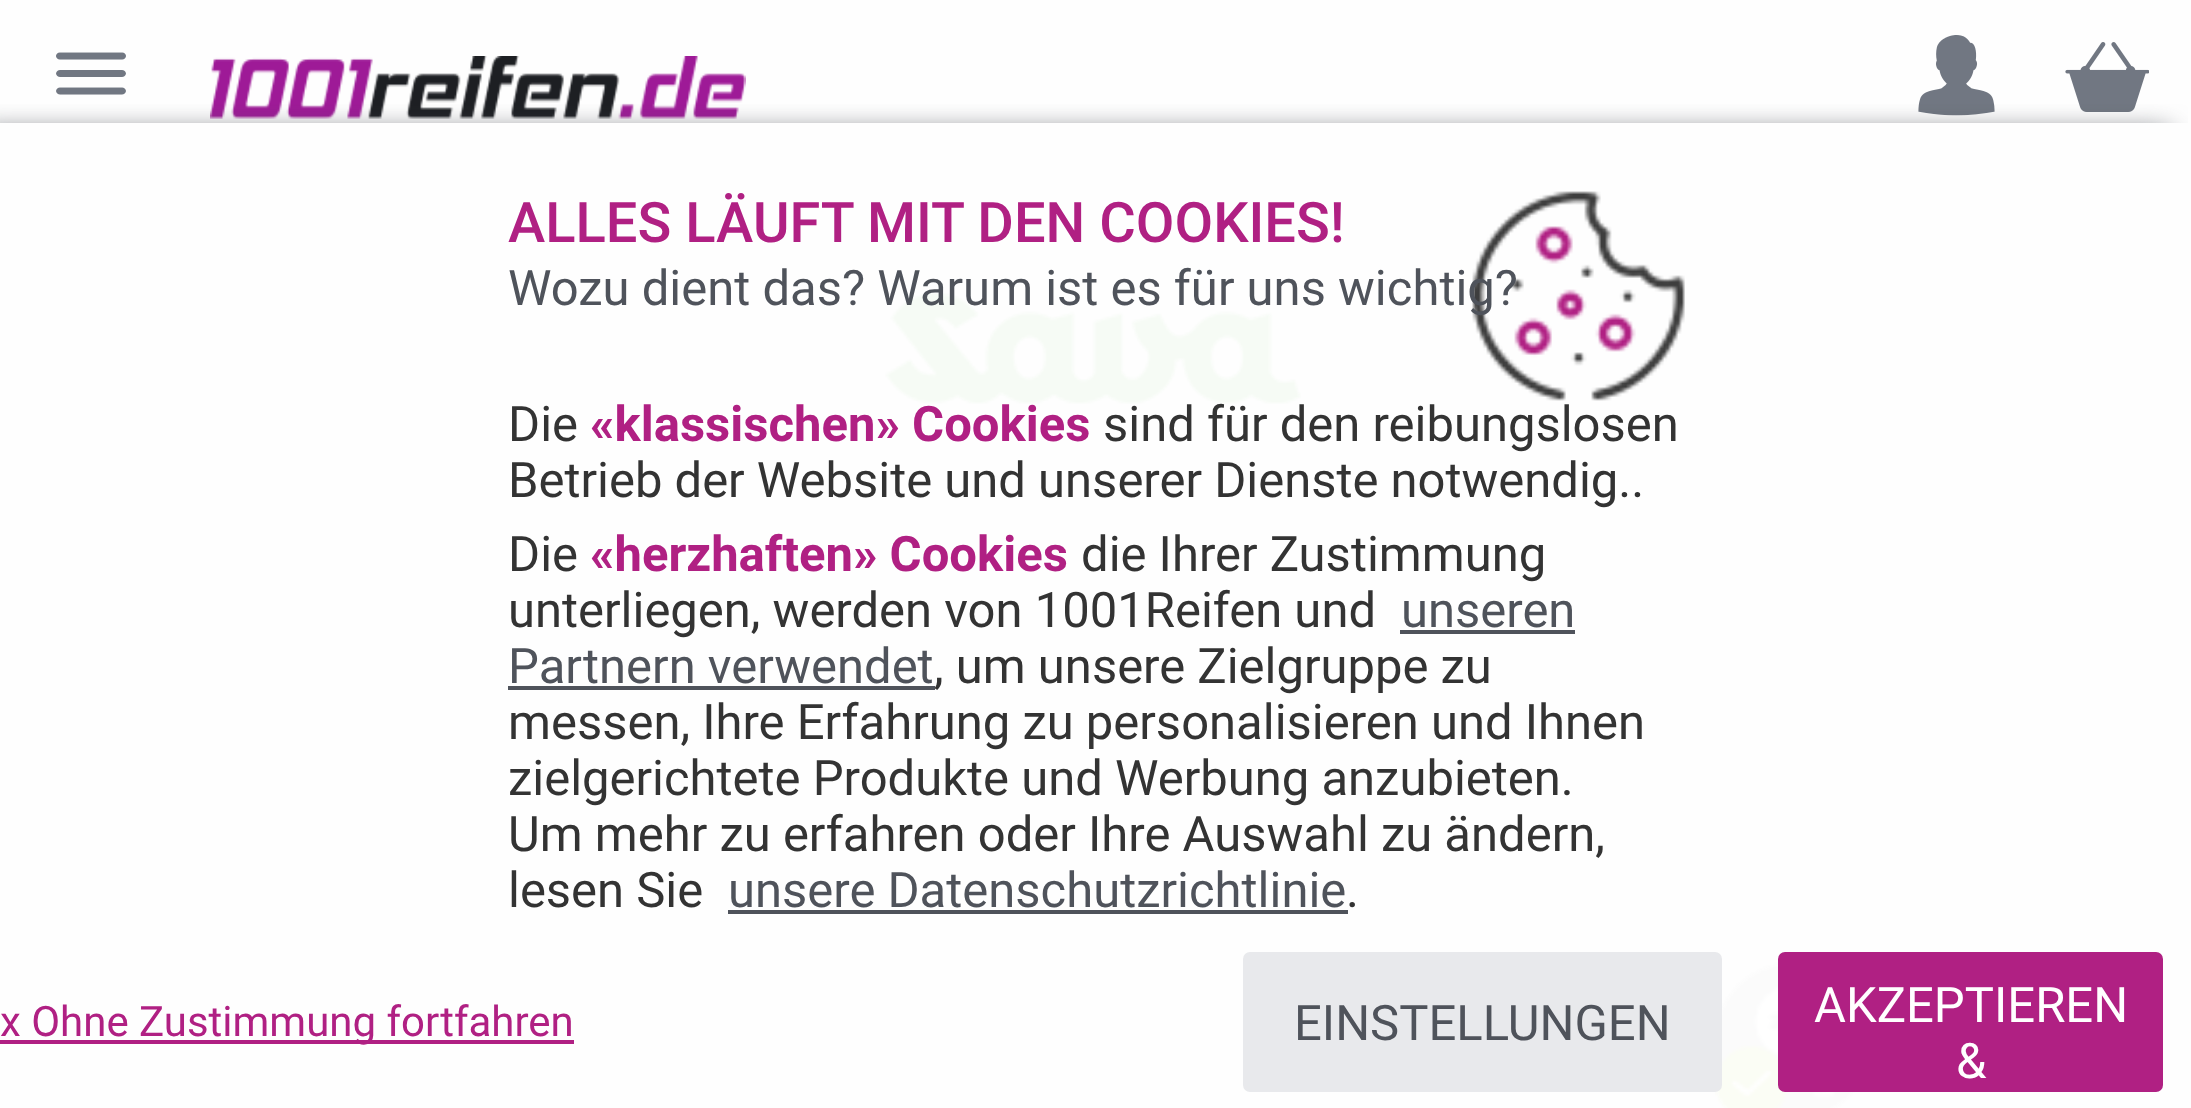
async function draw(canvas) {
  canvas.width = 2191
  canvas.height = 1108
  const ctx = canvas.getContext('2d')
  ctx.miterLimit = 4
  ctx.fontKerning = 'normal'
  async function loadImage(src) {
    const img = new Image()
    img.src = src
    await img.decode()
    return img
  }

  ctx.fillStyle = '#fefefe'
  ctx.fillRect(0, 0, 2191, 1108)
  ctx.drawImage(await loadImage('image0.png'), 56, 52, 70, 43)
  ctx.drawImage(await loadImage('image1.png'), 210, 56, 536, 63)
  ctx.drawImage(await loadImage('image2.png'), 1918, 35, 77, 81)
  ctx.drawImage(await loadImage('image3.png'), 2065, 42, 84, 70)
  ctx.drawImage(await loadImage('image4.png'), 884, 293, 418, 111)
  ctx.drawImage(await loadImage('image5.png'), 1715, 962, 142, 146)
  ctx.save()
  ctx.beginPath()
  ctx.rect(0, 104, 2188, 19)
  ctx.clip()
  ctx.fillStyle = '#4f535b'
  ctx.filter = 'blur(14px)'
  ctx.beginPath()
  ctx.rect(-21, 133, 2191, 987)
  ctx.fill()
  ctx.filter = 'none'
  ctx.restore()
  ctx.drawImage(await loadImage('image6.png'), 1472, 191, 213, 210)
  ctx.font = '500 56px Roboto'
  ctx.fillStyle = '#b02083'
  ctx.fillText('ALLES LÄUFT MIT DEN COOKIES!', 508, 242)
  ctx.font = '49px Roboto'
  ctx.fillStyle = '#4f535b'
  ctx.fillText('Wozu dient das? Warum ist es für uns wichtig?', 508, 305)
  ctx.fillStyle = '#333'
  ctx.fillText('Die', 508, 441)
  ctx.font = 'bold 49px Roboto'
  ctx.fillStyle = '#b02083'
  ctx.fillText('«klassischen» Cookies', 590, 441)
  ctx.font = '49px Roboto'
  ctx.fillStyle = '#333'
  ctx.fillText('sind für den reibungslosen', 1103, 441)
  ctx.fillText('Betrieb der Website und unserer Dienste notwendig..', 508, 497)
  ctx.fillText('Die', 508, 571)
  ctx.font = 'bold 49px Roboto'
  ctx.fillStyle = '#b02083'
  ctx.fillText('«herzhaften» Cookies', 590, 571)
  ctx.font = '49px Roboto'
  ctx.fillStyle = '#333'
  ctx.fillText('die Ihrer Zustimmung', 1081, 571)
  ctx.fillText('unterliegen, werden von 1001Reifen und', 508, 627)
  ctx.fillStyle = '#4f535b'
  ctx.fillText('unseren', 1401, 627)
  ctx.fillRect(1400, 630, 175, 4)
  ctx.fillText('Partnern verwendet', 508, 683)
  ctx.fillRect(508, 686, 427, 4)
  ctx.fillStyle = '#333'
  ctx.fillText(', um unsere Zielgruppe zu', 934, 683)
  ctx.fillText('messen, Ihre Erfahrung zu personalisieren und Ihnen', 508, 739)
  ctx.fillText('zielgerichtete Produkte und Werbung anzubieten.', 508, 795)
  ctx.fillText('Um mehr zu erfahren oder Ihre Auswahl zu ändern,', 508, 851)
  ctx.fillText('lesen Sie', 508, 907)
  ctx.fillStyle = '#4f535b'
  ctx.fillText('unsere Datenschutzrichtlinie', 728, 907)
  ctx.fillRect(728, 910, 620, 4)
  ctx.fillStyle = '#333'
  ctx.fillText('.', 1346, 907)
  ctx.fillStyle = '#b02083'
  ctx.fillRect(0, 1040, 574, 4)
  ctx.font = '42px Roboto'
  ctx.fillText('x Ohne Zustimmung fortfahren', 0, 1036)
  ctx.fillStyle = '#e8e9ec'
  ctx.beginPath()
  ctx.roundRect(1243, 952, 479, 140, 7)
  ctx.fill()
  ctx.font = '49px Roboto'
  ctx.fillStyle = '#4f535b'
  ctx.fillText('EINSTELLUNGEN', 1294, 1040)
  ctx.fillStyle = '#b02083'
  ctx.beginPath()
  ctx.roundRect(1778, 952, 385, 140, 7)
  ctx.fill()
  ctx.fillStyle = '#fff'
  ctx.fillText('AKZEPTIEREN', 1814, 1022)
  ctx.fillText('&', 1956, 1078)
}

draw(document.querySelector('canvas'))
